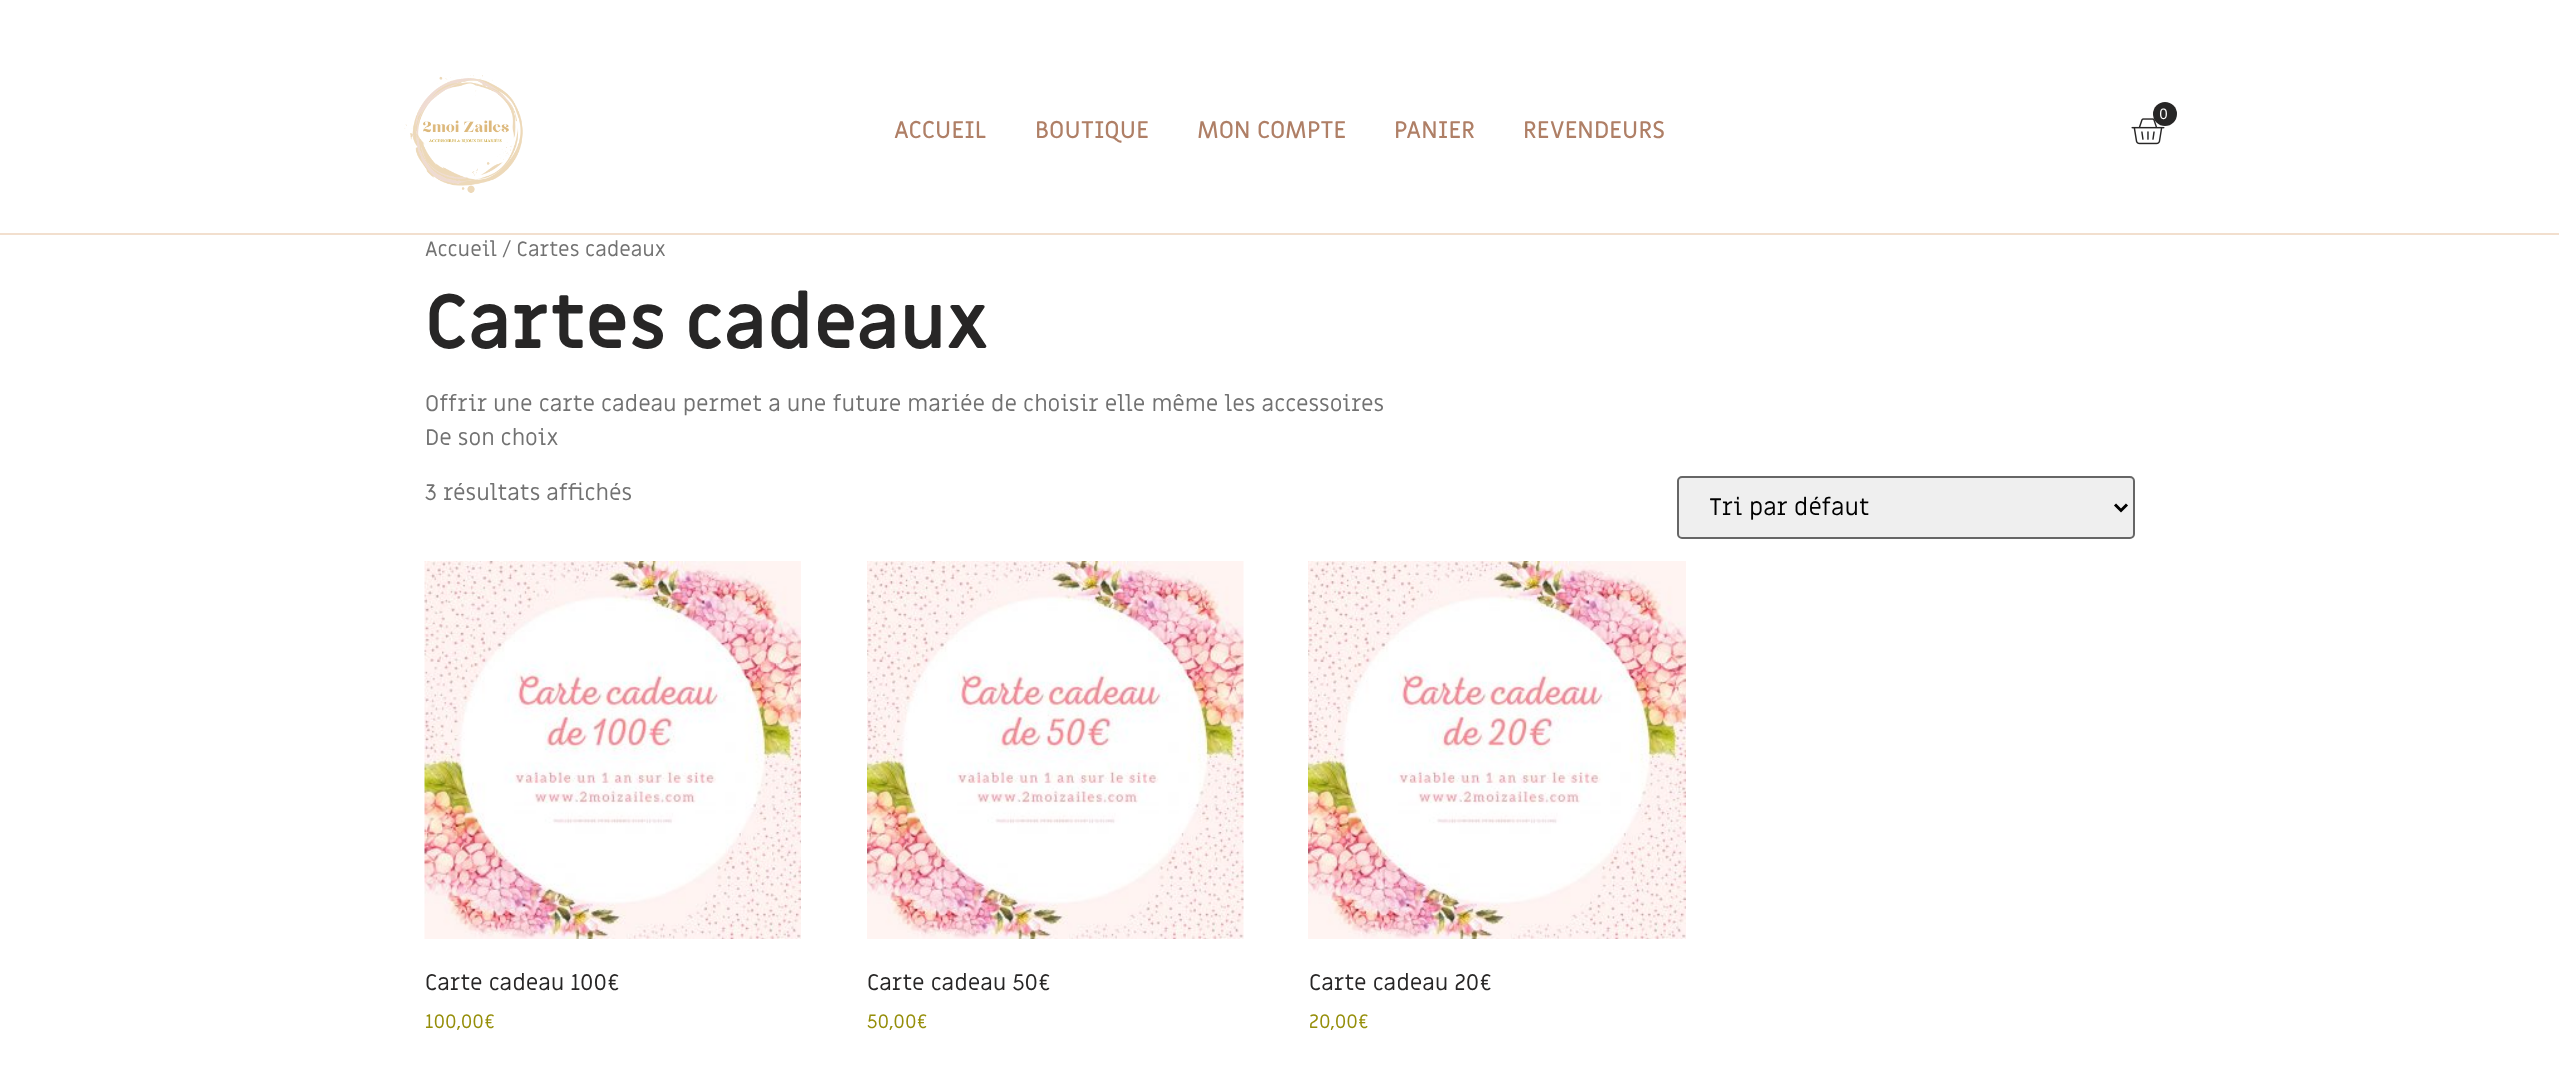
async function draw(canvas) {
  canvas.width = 2559
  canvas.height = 1072
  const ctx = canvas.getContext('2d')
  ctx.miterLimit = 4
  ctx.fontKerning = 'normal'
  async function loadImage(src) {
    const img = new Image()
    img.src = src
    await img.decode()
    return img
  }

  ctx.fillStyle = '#fff'
  ctx.fillRect(0, 0, 2559, 1072)
  ctx.fillStyle = '#f2dfce'
  ctx.fillRect(0, 233, 2559, 2)
  ctx.drawImage(await loadImage('image0.png'), 404, 75, 119, 118)
  ctx.drawImage(await loadImage('image1.png'), 2131, 118, 34, 27)
  ctx.fillStyle = '#272626'
  ctx.beginPath()
  ctx.arc(2165, 114, 12, 0, 2 * Math.PI)
  ctx.fill()
  ctx.letterSpacing = '2px'
  ctx.font = '15px Miriam Libre'
  ctx.fillStyle = '#fff'
  ctx.fillText('0', 2159, 119)
  ctx.letterSpacing = '0px'
  ctx.font = '500 24px Miriam Libre'
  ctx.fillStyle = '#af7f66'
  ctx.fillText('ACCUEIL', 894, 138)
  ctx.fillText('BOUTIQUE', 1035, 138)
  ctx.fillText('MON COMPTE', 1197, 138)
  ctx.fillText('PANIER', 1394, 138)
  ctx.fillText('REVENDEURS', 1523, 138)
  ctx.font = '20.75px Miriam Libre'
  ctx.fillStyle = '#727272'
  ctx.fillText('Accueil / Cartes cadeaux', 425, 256)
  ctx.font = 'bold 75px Miriam Libre'
  ctx.fillStyle = '#272626'
  ctx.fillText('Cartes cadeaux', 425, 348)
  ctx.font = '22.5px Miriam Libre'
  ctx.fillStyle = '#727272'
  ctx.fillText('Offrir une carte cadeau permet a une future mariée de choisir elle même les accessoires', 425, 411)
  ctx.fillText('De son choix', 425, 445)
  ctx.fillText('3 résultats affichés', 425, 500)
  ctx.fillStyle = '#efefef'
  ctx.beginPath()
  ctx.roundRect(1678, 477, 456, 61, 4)
  ctx.fill()
  ctx.strokeStyle = '#666'
  ctx.lineWidth = 2
  ctx.stroke()
  ctx.beginPath()
  ctx.moveTo(2115, 504.5)
  ctx.lineTo(2121, 510.5)
  ctx.lineTo(2127, 504.5)
  ctx.strokeStyle = '#000'
  ctx.lineWidth = 3
  ctx.stroke()
  ctx.font = '24px Miriam Libre'
  ctx.fillStyle = '#000'
  ctx.fillText('Tri par défaut', 1709, 515)
  ctx.drawImage(await loadImage('image2.png'), 424, 561, 377, 378)
  ctx.font = '22.5px Miriam Libre'
  ctx.fillStyle = '#272626'
  ctx.fillText('Carte cadeau 100€', 425, 990)
  ctx.font = '19.5px Miriam Libre'
  ctx.fillStyle = '#958e09'
  ctx.fillText('100,00€', 425, 1028)
  ctx.drawImage(await loadImage('image3.png'), 867, 561, 377, 378)
  ctx.font = '22.5px Miriam Libre'
  ctx.fillStyle = '#272626'
  ctx.fillText('Carte cadeau 50€', 867, 990)
  ctx.font = '19.5px Miriam Libre'
  ctx.fillStyle = '#958e09'
  ctx.fillText('50,00€', 867, 1028)
  ctx.drawImage(await loadImage('image4.png'), 1308, 561, 378, 378)
  ctx.font = '22.5px Miriam Libre'
  ctx.fillStyle = '#272626'
  ctx.fillText('Carte cadeau 20€', 1309, 990)
  ctx.font = '19.5px Miriam Libre'
  ctx.fillStyle = '#958e09'
  ctx.fillText('20,00€', 1309, 1028)
}

draw(document.querySelector('canvas'))
